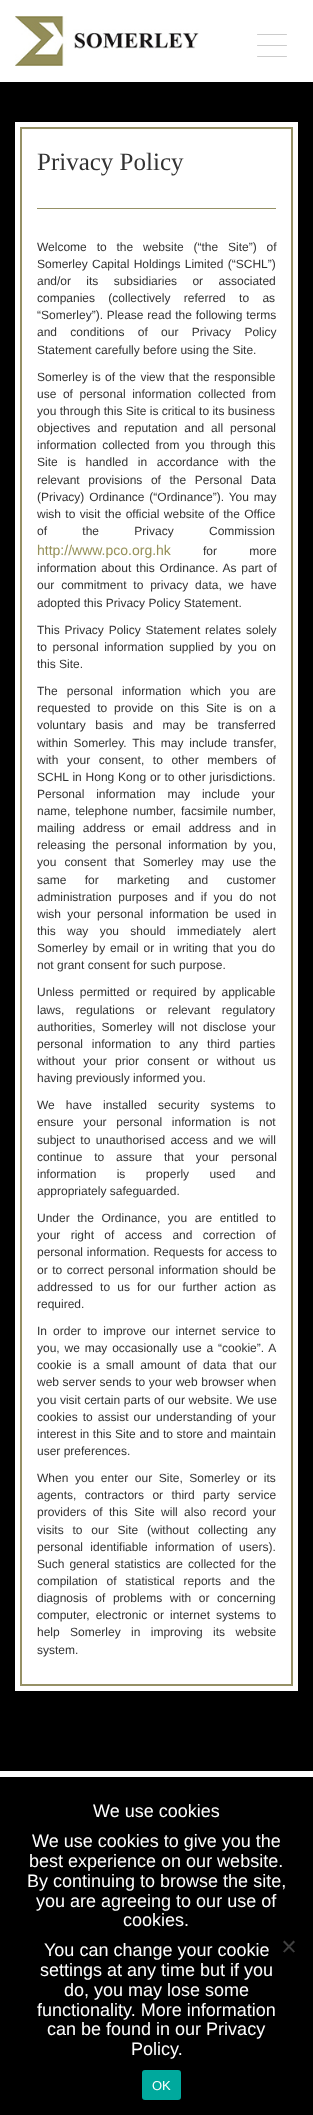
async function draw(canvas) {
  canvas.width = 313
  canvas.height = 2115
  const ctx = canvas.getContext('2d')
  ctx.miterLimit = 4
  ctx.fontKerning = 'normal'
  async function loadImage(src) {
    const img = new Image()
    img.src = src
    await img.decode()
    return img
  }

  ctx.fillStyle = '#fff'
  ctx.fillRect(0, 0, 313, 2115)
  ctx.drawImage(await loadImage('image0.png'), 15, 16, 184, 50)
  ctx.fillStyle = '#ccc'
  ctx.beginPath()
  ctx.roundRect(257, 34, 30, 1, 0.5)
  ctx.fill()
  ctx.beginPath()
  ctx.roundRect(257, 45, 30, 1, 0.5)
  ctx.fill()
  ctx.beginPath()
  ctx.roundRect(257, 56, 30, 1, 0.5)
  ctx.fill()
  ctx.fillStyle = '#000'
  ctx.fillRect(0, 82, 313, 1689)
  ctx.fillStyle = '#fff'
  ctx.fillRect(15, 122, 283, 1569)
  ctx.strokeStyle = '#969166'
  ctx.lineWidth = 2
  ctx.strokeRect(21, 128, 271, 1557)
  ctx.font = '25px Liberation Serif'
  ctx.fillStyle = '#333'
  ctx.fillText('Privacy Policy', 37, 170)
  ctx.fillStyle = '#969166'
  ctx.fillRect(37, 208, 239, 1)
  ctx.wordSpacing = '6.5px'
  ctx.font = '12px Liberation Sans'
  ctx.fillStyle = '#333'
  ctx.fillText('Welcome to the website (“the Site”) of', 37, 251)
  ctx.wordSpacing = '1px'
  ctx.fillText('Somerley Capital Holdings Limited (“SCHL”)', 37, 268)
  ctx.wordSpacing = '12px'
  ctx.fillText('and/or its subsidiaries or associated', 37, 285)
  ctx.wordSpacing = '10px'
  ctx.fillText('companies (collectively referred to as', 37, 302)
  ctx.wordSpacing = '0.5px'
  ctx.fillText('“Somerley”). Please read the following terms', 37, 319)
  ctx.wordSpacing = '10px'
  ctx.fillText('and conditions of our Privacy Policy', 37, 336)
  ctx.wordSpacing = '0px'
  ctx.fillText('Statement carefully before using the Site.', 37, 354)
  ctx.wordSpacing = '1px'
  ctx.fillText('Somerley is of the view that the responsible', 37, 381)
  ctx.wordSpacing = '3.25px'
  ctx.fillText('use of personal information collected from', 37, 398)
  ctx.wordSpacing = '0px'
  ctx.fillText('you through this Site is critical to its business', 37, 415)
  ctx.wordSpacing = '3.5px'
  ctx.fillText('objectives and reputation and all personal', 37, 432)
  ctx.wordSpacing = '2.5px'
  ctx.fillText('information collected from you through this', 37, 449)
  ctx.wordSpacing = '6.25px'
  ctx.fillText('Site is handled in accordance with the', 37, 466)
  ctx.wordSpacing = '5.25px'
  ctx.fillText('relevant provisions of the Personal Data', 37, 484)
  ctx.wordSpacing = '1.5px'
  ctx.fillText('(Privacy) Ordinance (“Ordinance”). You may', 37, 501)
  ctx.wordSpacing = '1px'
  ctx.fillText('wish to visit the official website of the Office', 37, 518)
  ctx.wordSpacing = '32px'
  ctx.fillText('of the Privacy Commission', 37, 535)
  ctx.wordSpacing = '0px'
  ctx.font = '14px Liberation Sans'
  ctx.fillStyle = '#969159'
  ctx.fillText('http://www.pco.org.hk', 37, 555)
  ctx.wordSpacing = '29px'
  ctx.font = '12px Liberation Sans'
  ctx.fillStyle = '#333'
  ctx.fillText('for more', 203, 555)
  ctx.wordSpacing = '1.5px'
  ctx.fillText('information about this Ordinance. As part of', 37, 572)
  ctx.wordSpacing = '3.5px'
  ctx.fillText('our commitment to privacy data, we have', 37, 589)
  ctx.wordSpacing = '0px'
  ctx.fillText('adopted this Privacy Policy Statement.', 37, 607)
  ctx.wordSpacing = '1.5px'
  ctx.fillText('This Privacy Policy Statement relates solely', 37, 634)
  ctx.wordSpacing = '2.25px'
  ctx.fillText('to personal information supplied by you on', 37, 651)
  ctx.wordSpacing = '0px'
  ctx.fillText('this Site.', 37, 668)
  ctx.wordSpacing = '5.75px'
  ctx.fillText('The personal information which you are', 37, 695)
  ctx.wordSpacing = '3.5px'
  ctx.fillText('requested to provide on this Site is on a', 37, 712)
  ctx.wordSpacing = '6.25px'
  ctx.fillText('voluntary basis and may be transferred', 37, 729)
  ctx.wordSpacing = '2.5px'
  ctx.fillText('within Somerley. This may include transfer,', 37, 747)
  ctx.wordSpacing = '5.25px'
  ctx.fillText('with your consent, to other members of', 37, 764)
  ctx.wordSpacing = '0.5px'
  ctx.fillText('SCHL in Hong Kong or to other jurisdictions.', 37, 781)
  ctx.wordSpacing = '8.5px'
  ctx.fillText('Personal information may include your', 37, 798)
  ctx.wordSpacing = '1.5px'
  ctx.fillText('name, telephone number, facsimile number,', 37, 815)
  ctx.wordSpacing = '4.5px'
  ctx.fillText('mailing address or email address and in', 37, 832)
  ctx.wordSpacing = '3.25px'
  ctx.fillText('releasing the personal information by you,', 37, 849)
  ctx.wordSpacing = '4.75px'
  ctx.fillText('you consent that Somerley may use the', 37, 866)
  ctx.wordSpacing = '15px'
  ctx.fillText('same for marketing and customer', 37, 884)
  ctx.wordSpacing = '3.25px'
  ctx.fillText('administration purposes and if you do not', 37, 901)
  ctx.wordSpacing = '3px'
  ctx.fillText('wish your personal information be used in', 37, 918)
  ctx.wordSpacing = '8px'
  ctx.fillText('this way you should immediately alert', 37, 935)
  ctx.wordSpacing = '1.5px'
  ctx.fillText('Somerley by email or in writing that you do', 37, 952)
  ctx.wordSpacing = '0px'
  ctx.fillText('not grant consent for such purpose.', 37, 969)
  ctx.wordSpacing = '2.75px'
  ctx.fillText('Unless permitted or required by applicable', 37, 996)
  ctx.wordSpacing = '8px'
  ctx.fillText('laws, regulations or relevant regulatory', 37, 1014)
  ctx.wordSpacing = '2.5px'
  ctx.fillText('authorities, Somerley will not disclose your', 37, 1031)
  ctx.wordSpacing = '5.5px'
  ctx.fillText('personal information to any third parties', 37, 1048)
  ctx.wordSpacing = '5px'
  ctx.fillText('without your prior consent or without us', 37, 1065)
  ctx.wordSpacing = '0px'
  ctx.fillText('having previously informed you.', 37, 1082)
  ctx.wordSpacing = '7.75px'
  ctx.fillText('We have installed security systems to', 37, 1109)
  ctx.wordSpacing = '6.25px'
  ctx.fillText('ensure your personal information is not', 37, 1126)
  ctx.wordSpacing = '2px'
  ctx.fillText('subject to unauthorised access and we will', 37, 1144)
  ctx.wordSpacing = '8.5px'
  ctx.fillText('continue to assure that your personal', 37, 1161)
  ctx.wordSpacing = '17px'
  ctx.fillText('information is properly used and', 37, 1178)
  ctx.wordSpacing = '0px'
  ctx.fillText('appropriately safeguarded.', 37, 1195)
  ctx.wordSpacing = '4.25px'
  ctx.fillText('Under the Ordinance, you are entitled to', 37, 1222)
  ctx.wordSpacing = '7px'
  ctx.fillText('your right of access and correction of', 37, 1239)
  ctx.wordSpacing = '0.5px'
  ctx.fillText('personal information. Requests for access to', 37, 1256)
  ctx.wordSpacing = '1.25px'
  ctx.fillText('or to correct personal information should be', 37, 1274)
  ctx.wordSpacing = '3.75px'
  ctx.fillText('addressed to us for our further action as', 37, 1291)
  ctx.wordSpacing = '0px'
  ctx.fillText('required.', 37, 1308)
  ctx.wordSpacing = '2.75px'
  ctx.fillText('In order to improve our internet service to', 37, 1335)
  ctx.wordSpacing = '1.5px'
  ctx.fillText('you, we may occasionally use a “cookie”. A', 37, 1352)
  ctx.wordSpacing = '3px'
  ctx.fillText('cookie is a small amount of data that our', 37, 1369)
  ctx.wordSpacing = '0.25px'
  ctx.fillText('web server sends to your web browser when', 37, 1386)
  ctx.fillText('you visit certain parts of our website. We use', 37, 1404)
  ctx.wordSpacing = '1.75px'
  ctx.fillText('cookies to assist our understanding of your', 37, 1421)
  ctx.wordSpacing = '0.25px'
  ctx.fillText('interest in this Site and to store and maintain', 37, 1438)
  ctx.wordSpacing = '0px'
  ctx.fillText('user preferences.', 37, 1455)
  ctx.wordSpacing = '3.25px'
  ctx.fillText('When you enter our Site, Somerley or its', 37, 1482)
  ctx.wordSpacing = '5px'
  ctx.fillText('agents, contractors or third party service', 37, 1499)
  ctx.wordSpacing = '3px'
  ctx.fillText('providers of this Site will also record your', 37, 1516)
  ctx.wordSpacing = '5.5px'
  ctx.fillText('visits to our Site (without collecting any', 37, 1534)
  ctx.wordSpacing = '4px'
  ctx.fillText('personal identifiable information of users).', 37, 1551)
  ctx.wordSpacing = '1.75px'
  ctx.fillText('Such general statistics are collected for the', 37, 1568)
  ctx.wordSpacing = '5.5px'
  ctx.fillText('compilation of statistical reports and the', 37, 1585)
  ctx.wordSpacing = '4.25px'
  ctx.fillText('diagnosis of problems with or concerning', 37, 1602)
  ctx.wordSpacing = '2.75px'
  ctx.fillText('computer, electronic or internet systems to', 37, 1619)
  ctx.wordSpacing = '7px'
  ctx.fillText('help Somerley in improving its website', 37, 1636)
  ctx.wordSpacing = '0px'
  ctx.fillText('system.', 37, 1654)
  ctx.fillStyle = '#000'
  ctx.fillRect(0, 1777, 313, 338)
  ctx.font = '18px Liberation Sans'
  ctx.fillStyle = '#fff'
  ctx.fillText('We use cookies', 93, 1817)
  ctx.fillText('We use cookies to give you the', 32, 1847)
  ctx.fillText('best experience on our website.', 29, 1867)
  ctx.fillText('By continuing to browse the site,', 27, 1887)
  ctx.fillText('you are agreeing to our use of', 36, 1907)
  ctx.fillText('cookies.', 123, 1926)
  ctx.fillText('You can change your cookie', 44, 1956)
  ctx.fillText('settings at any time but if you', 40, 1976)
  ctx.fillText('do, you may lose some', 64, 1996)
  ctx.fillText('functionality. More information', 37, 2016)
  ctx.fillText('can be found in our Privacy', 47, 2035)
  ctx.fillText('Policy.', 131, 2055)
  ctx.fillStyle = '#404040'
  ctx.beginPath()
  ctx.moveTo(293.5, 1940.5)
  ctx.lineTo(295, 1942)
  ctx.lineTo(284.5, 1952.5)
  ctx.lineTo(283, 1951.5)
  ctx.closePath()
  ctx.fill()
  ctx.beginPath()
  ctx.moveTo(283, 1942)
  ctx.lineTo(284.5, 1940.5)
  ctx.lineTo(295, 1951.5)
  ctx.lineTo(293.5, 1952.5)
  ctx.closePath()
  ctx.fill()
  ctx.fillStyle = '#00a99d'
  ctx.beginPath()
  ctx.roundRect(142, 2070, 39, 30, 3)
  ctx.fill()
  ctx.font = '13px Liberation Sans'
  ctx.fillStyle = '#fff'
  ctx.fillText('OK', 152, 2090)
}

draw(document.querySelector('canvas'))
